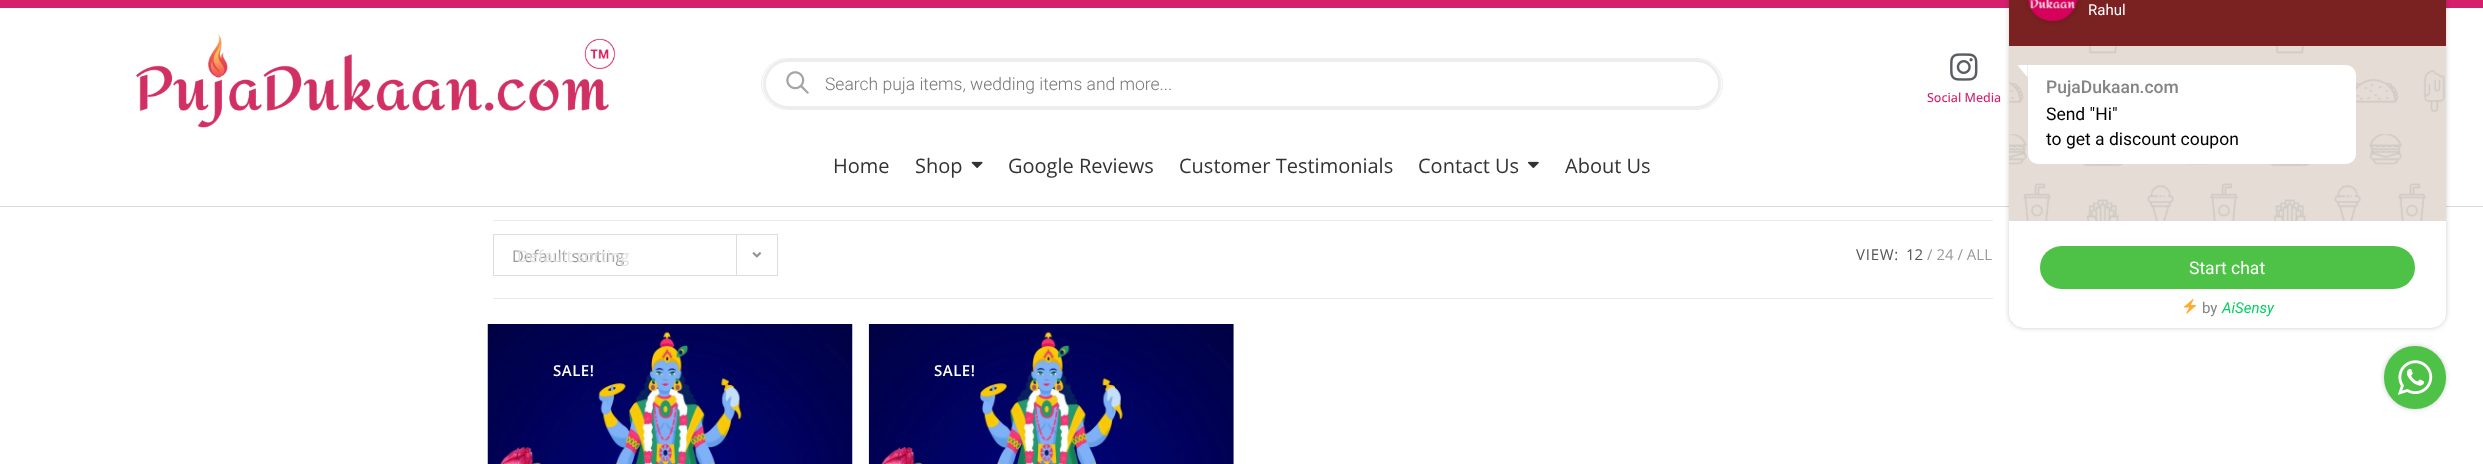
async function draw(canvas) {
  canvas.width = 2483
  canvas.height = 464
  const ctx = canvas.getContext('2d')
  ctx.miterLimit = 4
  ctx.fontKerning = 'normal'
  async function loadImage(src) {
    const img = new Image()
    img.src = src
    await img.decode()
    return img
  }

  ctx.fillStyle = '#fff'
  ctx.fillRect(0, 0, 2483, 464)
  ctx.fillStyle = '#d51f6c'
  ctx.fillRect(0, 0, 2483, 8)
  ctx.drawImage(await loadImage('image0.png'), 136, 34, 479, 94)
  ctx.beginPath()
  ctx.roundRect(761.5, 58.5, 961, 51, 25.5)
  ctx.strokeStyle = '#eee'
  ctx.stroke()
  ctx.fillStyle = '#fff'
  ctx.beginPath()
  ctx.roundRect(764.5, 60.5, 955, 47, 23.5)
  ctx.fill()
  ctx.strokeStyle = '#ededed'
  ctx.lineWidth = 3
  ctx.stroke()
  ctx.drawImage(await loadImage('image1.png'), 786, 71, 23, 23)
  ctx.font = '300 17.5px Roboto'
  ctx.fillStyle = '#777'
  ctx.fillText('Search puja items, wedding items and more...', 825, 90)
  ctx.drawImage(await loadImage('image2.png'), 1950, 53, 28, 28)
  ctx.font = '500 12.5px Open Sans'
  ctx.fillStyle = '#d51f6c'
  ctx.fillText('Social Media', 1927, 102)
  ctx.fillStyle = '#d9d9d9'
  ctx.fillRect(0, 206, 2483, 1)
  ctx.font = '20px Open Sans'
  ctx.fillStyle = '#333'
  ctx.fillText('Home', 833, 173)
  ctx.fillText('Shop', 915, 173)
  ctx.drawImage(await loadImage('image3.png'), 971, 161, 12, 7)
  ctx.fillText('Google Reviews', 1008, 173)
  ctx.fillText('Customer Testimonials', 1179, 173)
  ctx.fillText('Contact Us', 1418, 173)
  ctx.drawImage(await loadImage('image4.png'), 1527, 161, 12, 7)
  ctx.fillText('About Us', 1565, 173)
  ctx.fillStyle = '#eaeaea'
  ctx.fillRect(493, 220, 1500, 1)
  ctx.fillRect(493, 298, 1500, 1)
  ctx.strokeStyle = '#ddd'
  ctx.lineWidth = 1
  ctx.strokeRect(493.5, 234.5, 284, 41)
  ctx.font = '16.25px Open Sans'
  ctx.fillStyle = '#999'
  ctx.fillText('Default sorting', 512, 262)
  ctx.fillStyle = '#ddd'
  ctx.fillRect(736, 235, 1, 40)
  ctx.drawImage(await loadImage('image5.png'), 752, 252, 9, 6)
  ctx.fillStyle = '#e0e0e0'
  ctx.fillText('Default sorting', 517, 262)
  ctx.letterSpacing = '0.75px'
  ctx.font = '15px Open Sans'
  ctx.fillStyle = '#555'
  ctx.fillText('VIEW:', 1856, 260)
  ctx.letterSpacing = '0px'
  ctx.fillText('12', 1906, 260)
  ctx.fillStyle = '#999'
  ctx.fillText('/ 24 / ALL', 1927, 260)
  ctx.drawImage(await loadImage('image6.png'), 487, 324, 366, 140)
  ctx.letterSpacing = '0.5px'
  ctx.font = '600 15px Open Sans'
  ctx.fillStyle = '#fff'
  ctx.fillText('SALE!', 553, 376)
  ctx.drawImage(await loadImage('image7.png'), 868, 324, 366, 140)
  ctx.fillText('SALE!', 934, 376)
  ctx.fillStyle = '#00000033'
  ctx.filter = 'blur(2.5px)'
  ctx.beginPath()
  ctx.roundRect(2009, -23, 437, 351, 15)
  ctx.fill()
  ctx.filter = 'none'
  ctx.fillStyle = '#e5ddd5'
  ctx.beginPath()
  ctx.roundRect(2009, -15, 437, 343, 15)
  ctx.fill()
  ctx.drawImage(await loadImage('image8.png'), 2009, 46, 436, 282)
  ctx.fillStyle = '#7a2121'
  ctx.fillRect(2009, 0, 437, 46)
  ctx.fillStyle = '#00000033'
  ctx.filter = 'blur(2.5px)'
  ctx.beginPath()
  ctx.roundRect(2028, -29, 50, 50, 25)
  ctx.fill()
  ctx.filter = 'none'
  ctx.drawImage(await loadImage('image9.png'), 2028, 0, 50, 21)
  ctx.letterSpacing = '0px'
  ctx.font = '15px Roboto'
  ctx.fillStyle = '#fff'
  ctx.fillText('Rahul', 2088, 15)
  ctx.beginPath()
  ctx.roundRect(2028, 65, 328, 99, [0, 10, 10, 10])
  ctx.fill()
  ctx.beginPath()
  ctx.moveTo(2027.5, 65)
  ctx.lineTo(2027.5, 77.5)
  ctx.lineTo(2017.5, 65)
  ctx.closePath()
  ctx.fill()
  ctx.font = '500 17.5px Roboto'
  ctx.fillStyle = '#848484'
  ctx.fillText('PujaDukaan.com', 2046, 93)
  ctx.font = '17.5px Roboto'
  ctx.fillStyle = '#000'
  ctx.fillText('Send "Hi"', 2046, 120)
  ctx.fillText('to get a discount coupon', 2046, 145)
  ctx.fillStyle = '#fff'
  ctx.beginPath()
  ctx.roundRect(2009, 221, 437, 107, [0, 0, 15, 15])
  ctx.fill()
  ctx.fillStyle = '#4dc247'
  ctx.beginPath()
  ctx.roundRect(2040, 246, 375, 43, 21.5)
  ctx.fill()
  ctx.fillStyle = '#fff'
  ctx.fillText('Start chat', 2189, 274)
  ctx.drawImage(await loadImage('image10.png'), 2183, 299, 14, 15)
  ctx.font = '15px Roboto'
  ctx.fillStyle = '#848484'
  ctx.fillText('by', 2202, 313)
  ctx.font = 'italic 15px Roboto'
  ctx.fillStyle = '#08cf65'
  ctx.fillText('AiSensy', 2222, 313)
  ctx.fillStyle = '#00000033'
  ctx.filter = 'blur(2.5px)'
  ctx.beginPath()
  ctx.roundRect(2384, 346, 62, 63, 31)
  ctx.fill()
  ctx.filter = 'none'
  ctx.fillStyle = '#4dc247'
  ctx.beginPath()
  ctx.roundRect(2384, 346, 62, 63, 31)
  ctx.fill()
  ctx.drawImage(await loadImage('image11.png'), 2397, 360, 36, 35)
}

draw(document.querySelector('canvas'))
